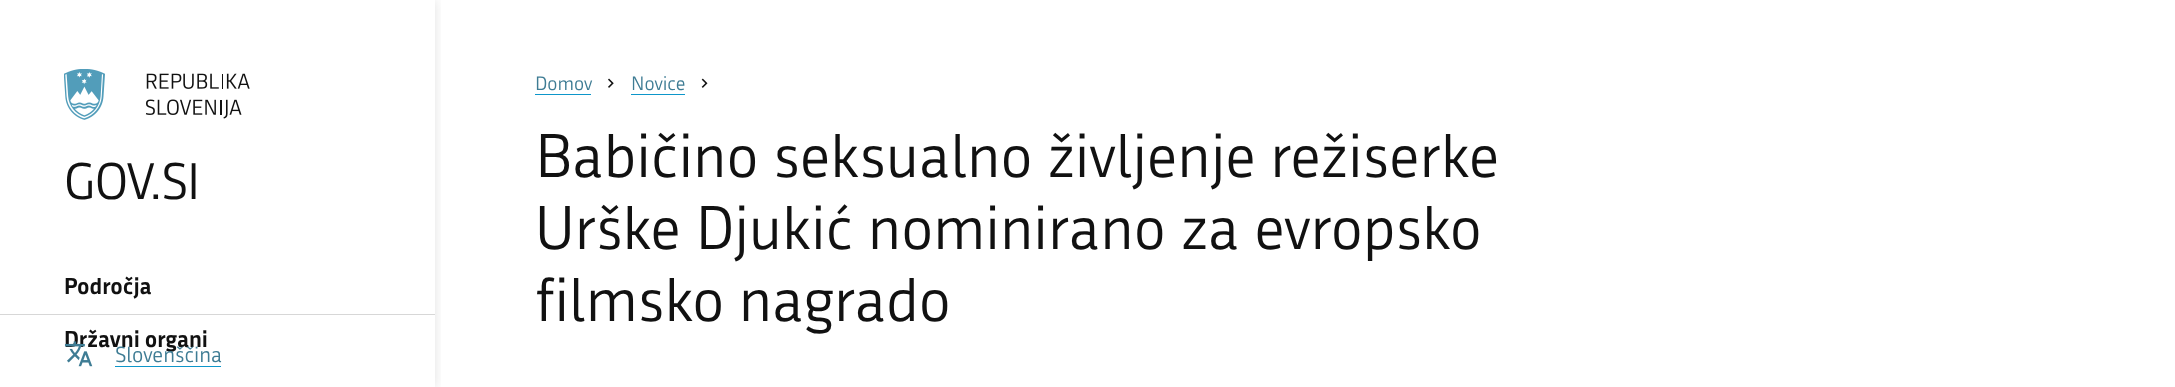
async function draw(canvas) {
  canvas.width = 2175
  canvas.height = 387
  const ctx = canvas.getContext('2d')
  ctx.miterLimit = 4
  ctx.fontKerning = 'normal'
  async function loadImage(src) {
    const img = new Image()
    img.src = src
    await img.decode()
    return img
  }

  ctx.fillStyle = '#fff'
  ctx.fillRect(0, 0, 2175, 387)
  ctx.save()
  ctx.beginPath()
  ctx.rect(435, 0, 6, 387)
  ctx.clip()
  ctx.fillStyle = '#0000001f'
  ctx.filter = 'blur(6px)'
  ctx.beginPath()
  ctx.rect(0, 0, 435, 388)
  ctx.fill()
  ctx.filter = 'none'
  ctx.restore()
  ctx.drawImage(await loadImage('image0.png'), 64, 69, 186, 51)
  ctx.letterSpacing = '-1px'
  ctx.font = '50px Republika'
  ctx.fillStyle = '#111'
  ctx.fillText('GOV.SI', 64, 199)
  ctx.letterSpacing = '0px'
  ctx.font = 'bold 22.5px Republika'
  ctx.fillText('Področja', 64, 294)
  ctx.fillText('Državni organi', 64, 347)
  ctx.fillStyle = '#d7d7d7'
  ctx.fillRect(0, 314, 435, 1)
  ctx.drawImage(await loadImage('image1.png'), 64, 341, 29, 26)
  ctx.font = '21.25px Republika'
  ctx.fillStyle = '#3e7c94'
  ctx.fillText('Slovenščina', 115, 362)
  ctx.fillStyle = '#0d96ca'
  ctx.fillRect(115, 366, 106, 1)
  ctx.font = '19px Republika'
  ctx.fillStyle = '#3e7c94'
  ctx.fillText('Domov', 535, 90)
  ctx.fillStyle = '#0d96ca'
  ctx.fillRect(535, 94, 56, 1)
  ctx.drawImage(await loadImage('image2.png'), 608, 78, 6, 10)
  ctx.fillStyle = '#3e7c94'
  ctx.fillText('Novice', 631, 90)
  ctx.fillStyle = '#0d96ca'
  ctx.fillRect(631, 94, 54, 1)
  ctx.drawImage(await loadImage('image3.png'), 701, 78, 7, 10)
  ctx.font = '60px Republika'
  ctx.fillStyle = '#111'
  ctx.fillText('Babičino seksualno življenje režiserke', 535, 177)
  ctx.fillText('Urške Djukić nominirano za evropsko', 535, 249)
  ctx.fillText('filmsko nagrado', 535, 321)
}

draw(document.querySelector('canvas'))
